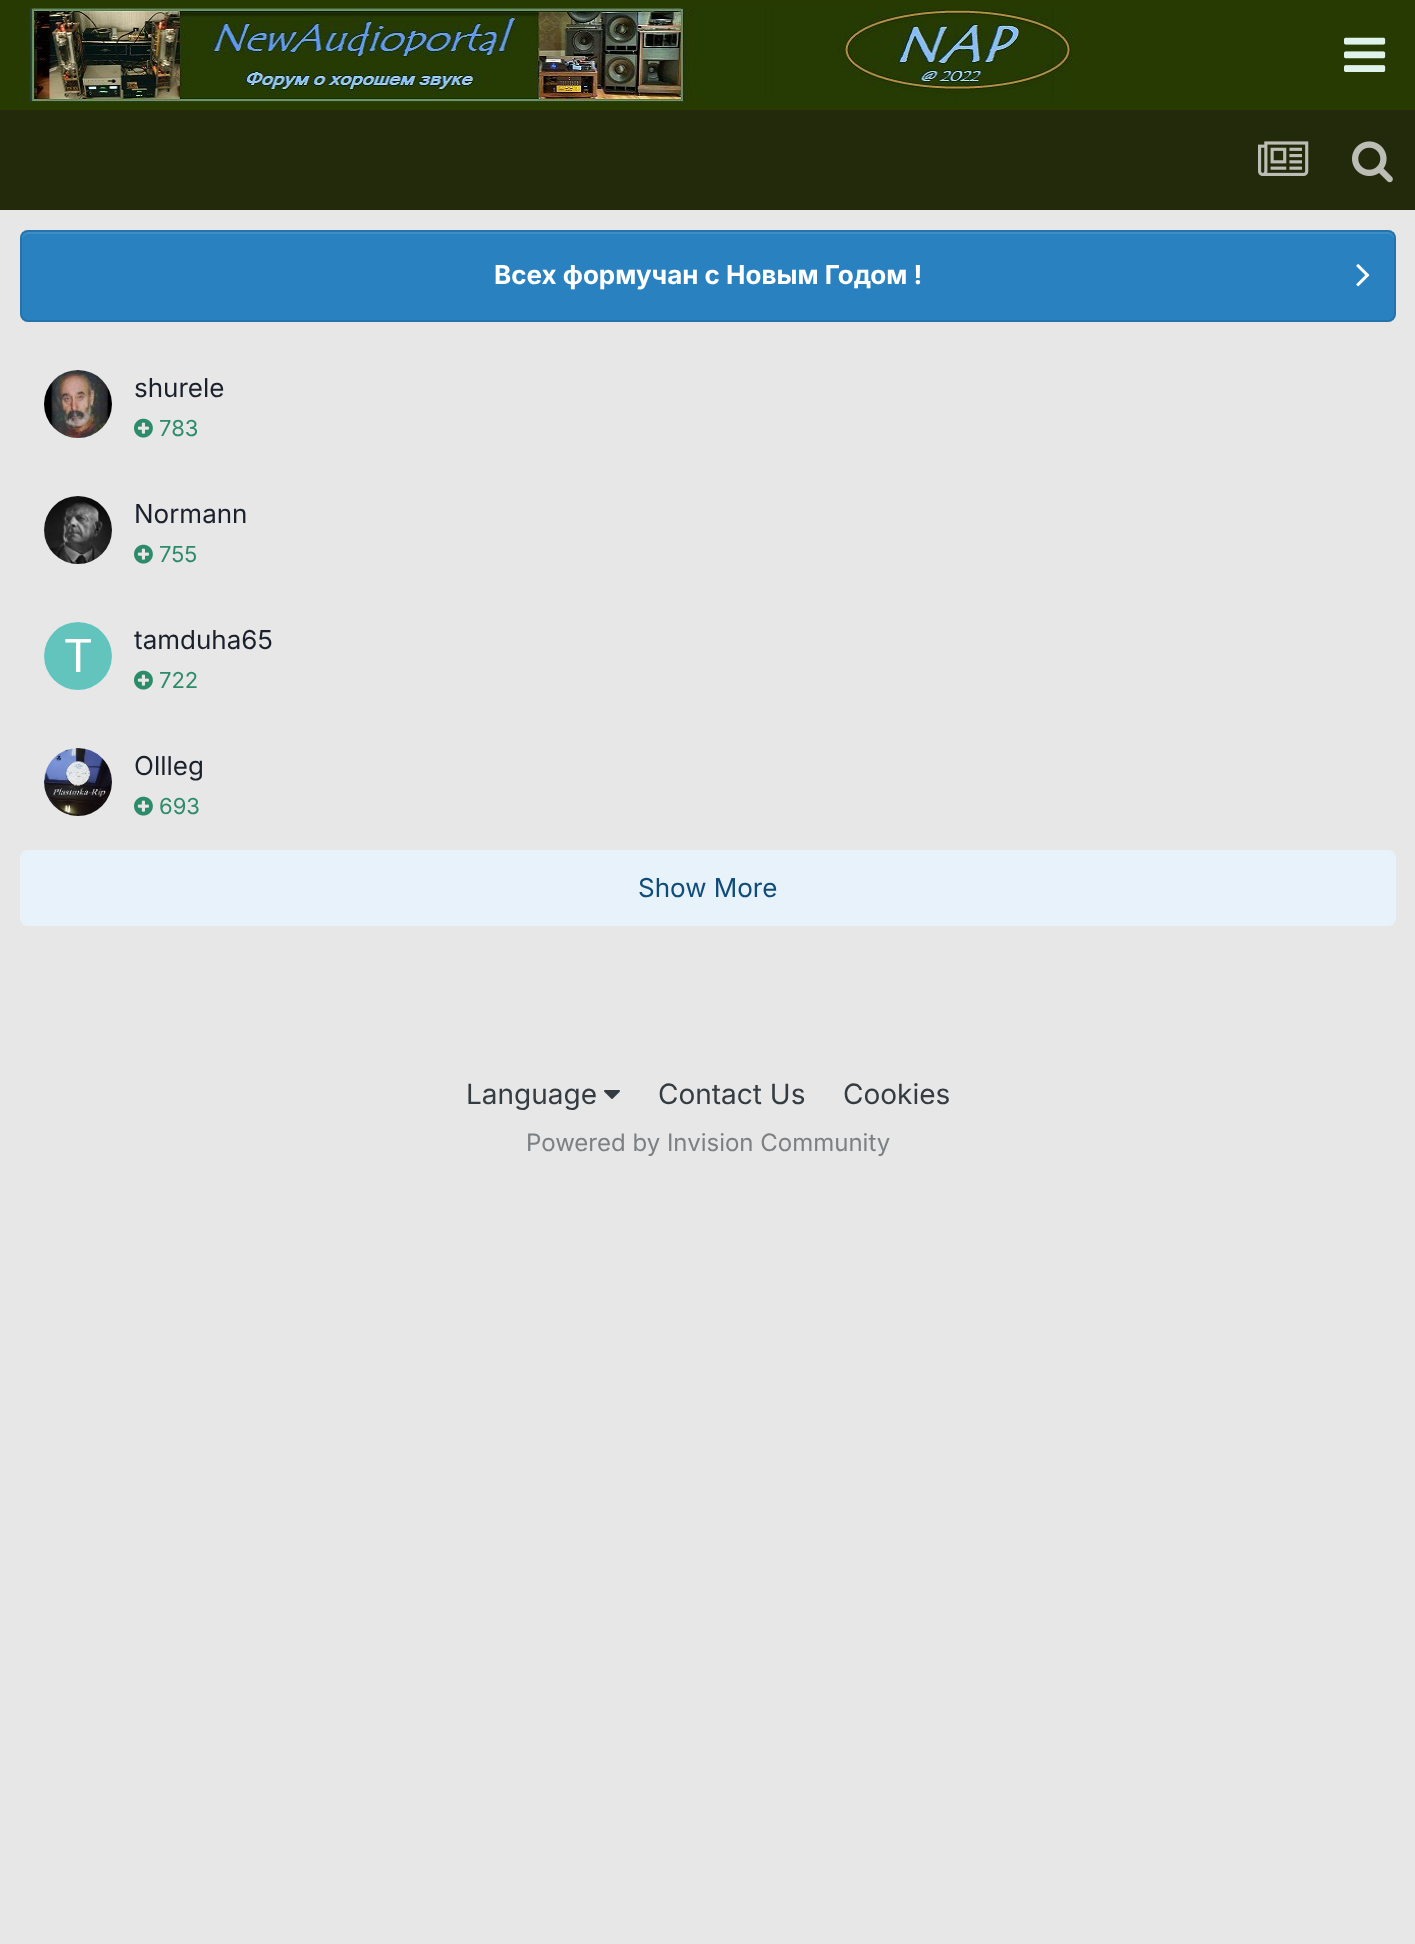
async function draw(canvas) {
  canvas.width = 1415
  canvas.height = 1944
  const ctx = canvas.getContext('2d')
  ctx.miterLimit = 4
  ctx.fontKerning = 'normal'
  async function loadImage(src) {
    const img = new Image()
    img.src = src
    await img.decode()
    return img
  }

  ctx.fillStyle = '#e7e7e7'
  ctx.fillRect(0, 0, 1415, 1944)
  ctx.fillStyle = '#263a02'
  ctx.fillRect(0, 0, 1415, 110)
  ctx.drawImage(await loadImage('image0.png'), 30, 8, 1044, 94)
  ctx.drawImage(await loadImage('image1.png'), 1344, 37, 42, 35)
  ctx.fillStyle = '#23290b'
  ctx.fillRect(0, 110, 1415, 100)
  ctx.drawImage(await loadImage('image2.png'), 1258, 141, 51, 35)
  ctx.drawImage(await loadImage('image3.png'), 1352, 141, 41, 42)
  ctx.fillStyle = '#2981bf'
  ctx.beginPath()
  ctx.roundRect(20, 230, 1376, 92, 8)
  ctx.fill()
  ctx.fillStyle = '#3e8ec5'
  ctx.beginPath()
  ctx.moveTo(28, 234)
  ctx.lineTo(1388, 234)
  ctx.bezierCurveTo(1391, 234, 1394, 237, 1394, 240)
  ctx.lineTo(1394, 238)
  ctx.bezierCurveTo(1394, 235, 1391, 232, 1388, 232)
  ctx.lineTo(28, 232)
  ctx.bezierCurveTo(25, 232, 22, 235, 22, 238)
  ctx.lineTo(22, 240)
  ctx.bezierCurveTo(22, 237, 25, 234, 28, 234)
  ctx.closePath()
  ctx.fill()
  ctx.beginPath()
  ctx.roundRect(21, 231, 1374, 90, 7)
  ctx.strokeStyle = '#0000001a'
  ctx.lineWidth = 2
  ctx.stroke()
  ctx.font = 'bold 26px Inter'
  ctx.fillStyle = '#fff'
  ctx.fillText('Всех формучан с Новым Годом !', 494, 284)
  ctx.drawImage(await loadImage('image4.png'), 1356, 264, 14, 23)
  ctx.beginPath()
  ctx.arc(78, 404, 34, 0, 2 * Math.PI)
  ctx.fill()
  ctx.drawImage(await loadImage('image5.png'), 44, 370, 68, 68)
  ctx.font = '26px Inter'
  ctx.fillStyle = '#1a202c'
  ctx.fillText('shurele', 134, 397)
  ctx.drawImage(await loadImage('image6.png'), 134, 418, 19, 20)
  ctx.font = '22px Inter'
  ctx.fillStyle = '#2c8c69'
  ctx.fillText('783', 159, 436)
  ctx.fillStyle = '#fff'
  ctx.beginPath()
  ctx.arc(78, 530, 34, 0, 2 * Math.PI)
  ctx.fill()
  ctx.drawImage(await loadImage('image7.png'), 44, 496, 68, 68)
  ctx.font = '26px Inter'
  ctx.fillStyle = '#1a202c'
  ctx.fillText('Normann', 134, 523)
  ctx.drawImage(await loadImage('image6.png'), 134, 544, 19, 20)
  ctx.font = '22px Inter'
  ctx.fillStyle = '#2c8c69'
  ctx.fillText('755', 159, 562)
  ctx.fillStyle = '#fff'
  ctx.beginPath()
  ctx.arc(78, 656, 34, 0, 2 * Math.PI)
  ctx.fill()
  ctx.drawImage(await loadImage('image8.png'), 44, 622, 68, 68)
  ctx.font = '26px Inter'
  ctx.fillStyle = '#1a202c'
  ctx.fillText('tamduha65', 134, 649)
  ctx.drawImage(await loadImage('image6.png'), 134, 670, 19, 20)
  ctx.font = '22px Inter'
  ctx.fillStyle = '#2c8c69'
  ctx.fillText('722', 159, 688)
  ctx.fillStyle = '#fff'
  ctx.beginPath()
  ctx.arc(78, 782, 34, 0, 2 * Math.PI)
  ctx.fill()
  ctx.drawImage(await loadImage('image9.png'), 44, 748, 68, 68)
  ctx.font = '26px Inter'
  ctx.fillStyle = '#1a202c'
  ctx.fillText('Ollleg', 134, 775)
  ctx.drawImage(await loadImage('image6.png'), 134, 796, 19, 20)
  ctx.font = '22px Inter'
  ctx.fillStyle = '#2c8c69'
  ctx.fillText('693', 159, 814)
  ctx.fillStyle = '#e8f2fa'
  ctx.beginPath()
  ctx.roundRect(20, 850, 1376, 76, 8)
  ctx.fill()
  ctx.font = '26px Inter'
  ctx.fillStyle = '#0e4c79'
  ctx.fillText('Show More', 638, 897)
  ctx.font = '28px Inter'
  ctx.fillStyle = '#353c41'
  ctx.fillText('Language', 466, 1104)
  ctx.drawImage(await loadImage('image10.png'), 604, 1090, 16, 9)
  ctx.fillText('Contact Us', 658, 1104)
  ctx.fillText('Cookies', 843, 1104)
  ctx.font = '24px Inter'
  ctx.fillStyle = '#7c8083'
  ctx.fillText('Powered by Invision Community', 526, 1151)
}

draw(document.querySelector('canvas'))
